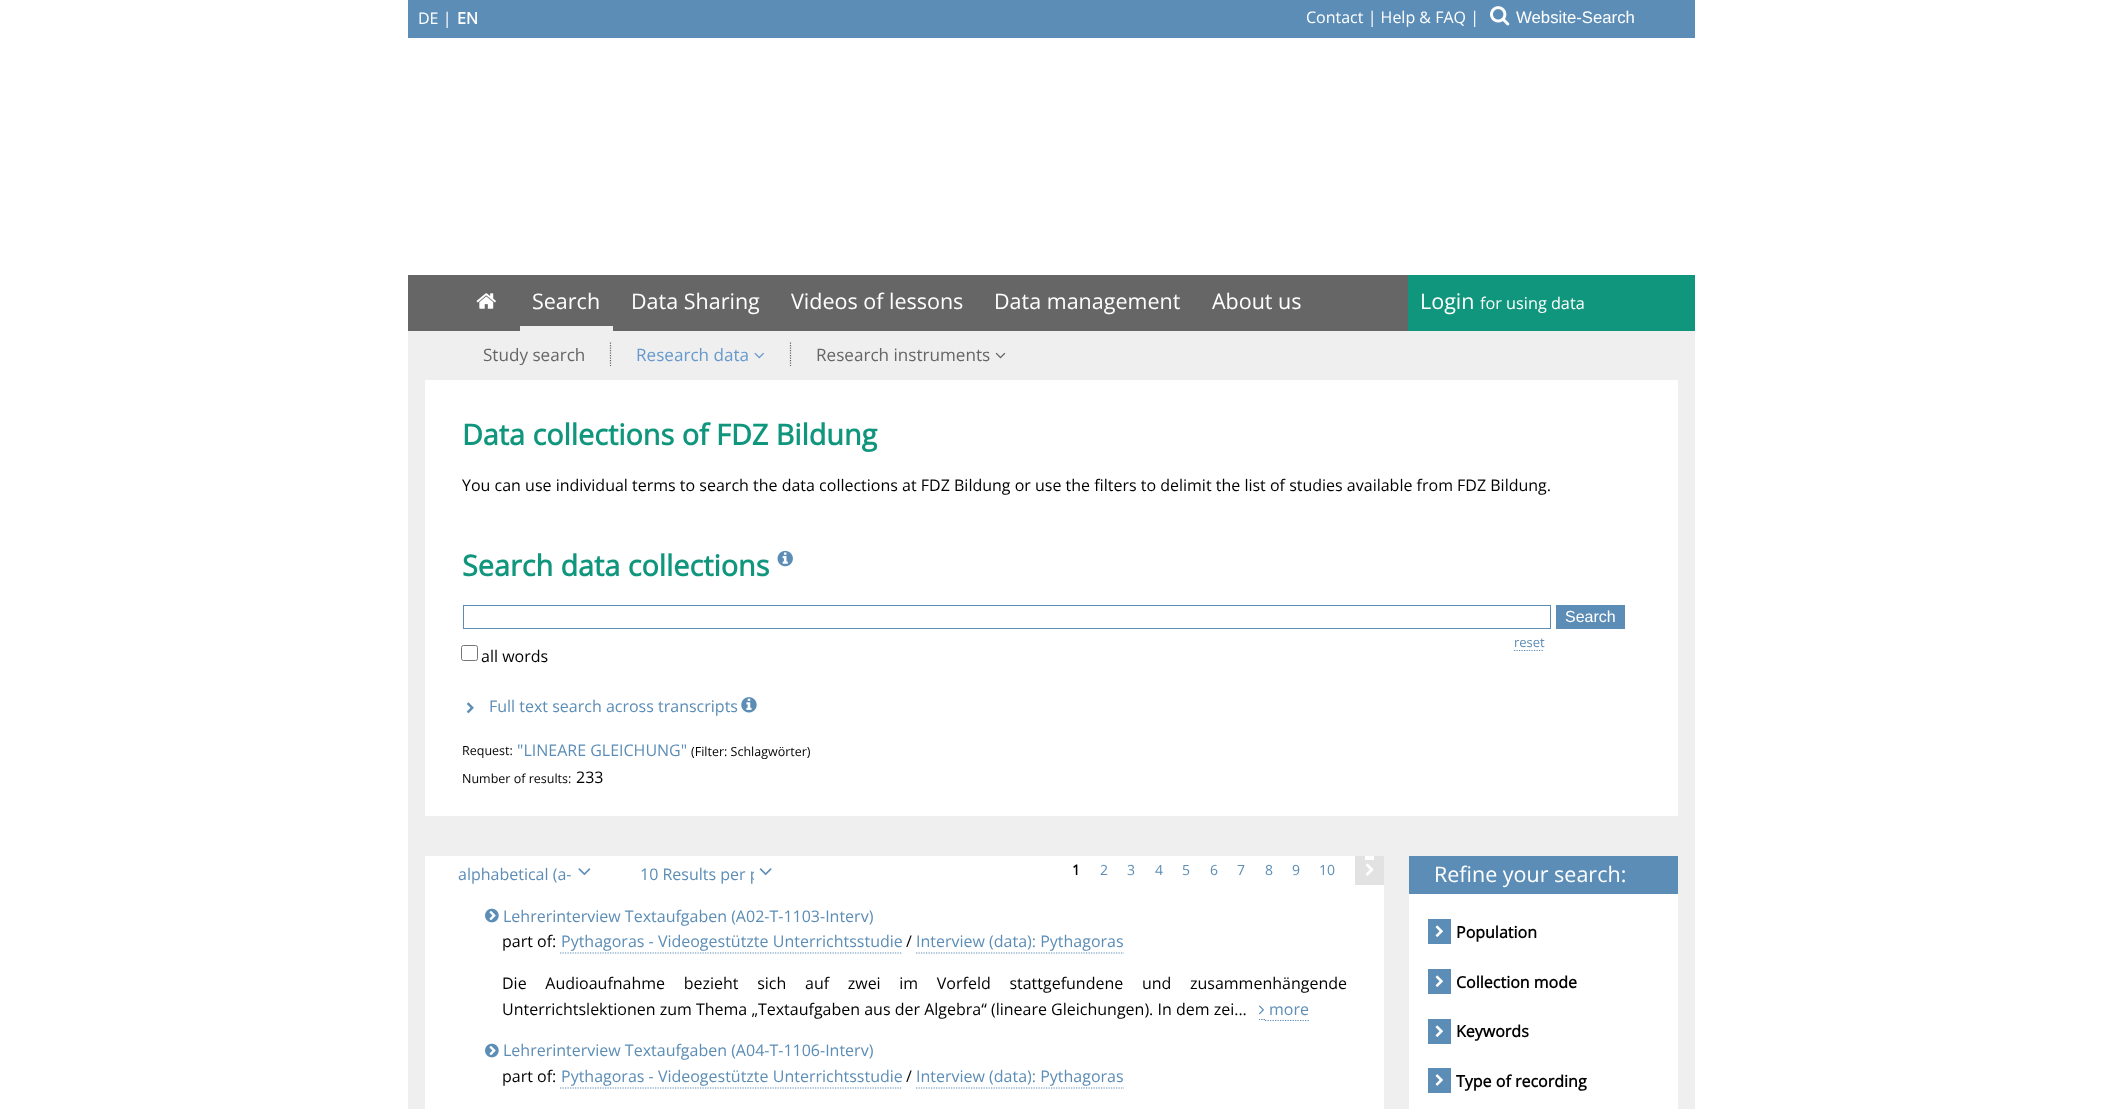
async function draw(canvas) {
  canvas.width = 2102
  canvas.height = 1109
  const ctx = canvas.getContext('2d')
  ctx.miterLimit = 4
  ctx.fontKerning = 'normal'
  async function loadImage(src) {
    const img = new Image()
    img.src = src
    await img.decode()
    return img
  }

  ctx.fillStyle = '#fff'
  ctx.fillRect(0, 0, 2102, 1109)
  ctx.fillStyle = '#5c8db6'
  ctx.fillRect(408, 0, 1287, 38)
  ctx.font = '16px Open Sans'
  ctx.fillStyle = '#fff'
  ctx.fillText('DE |', 418, 24)
  ctx.font = 'bold 16px Open Sans'
  ctx.fillText('EN', 457, 24)
  ctx.font = '16px Open Sans'
  ctx.fillText('Contact | Help & FAQ |', 1306, 23)
  ctx.drawImage(await loadImage('image0.png'), 1490, 6, 20, 20)
  ctx.font = '16.75px Liberation Sans'
  ctx.fillText('Website-Search', 1516, 23)
  ctx.fillStyle = '#666'
  ctx.fillRect(408, 275, 1000, 56)
  ctx.drawImage(await loadImage('image1.png'), 476, 293, 20, 16)
  ctx.fillStyle = '#efefef'
  ctx.fillRect(520, 326, 93, 5)
  ctx.font = '21.5px Open Sans'
  ctx.fillStyle = '#fff'
  ctx.fillText('Search', 532, 309)
  ctx.fillText('Data Sharing', 631, 309)
  ctx.fillText('Videos of lessons', 791, 309)
  ctx.fillText('Data management', 994, 309)
  ctx.fillText('About us', 1212, 309)
  ctx.fillStyle = '#11967e'
  ctx.fillRect(1408, 275, 287, 56)
  ctx.fillStyle = '#fff'
  ctx.fillText('Login', 1420, 309)
  ctx.font = '16.25px Open Sans'
  ctx.fillText('for using data', 1480, 309)
  ctx.fillStyle = '#efefef'
  ctx.fillRect(408, 331, 1287, 778)
  ctx.beginPath()
  ctx.moveTo(610.5, 342.5)
  ctx.lineTo(610.5, 366)
  ctx.strokeStyle = '#666'
  ctx.lineWidth = 1.2
  ctx.setLineDash([1.25, 1.25])
  ctx.stroke()
  ctx.font = '17.1px Open Sans'
  ctx.fillStyle = '#666'
  ctx.fillText('Study search', 483, 361)
  ctx.beginPath()
  ctx.moveTo(790.5, 342.5)
  ctx.lineTo(790.5, 366)
  ctx.stroke()
  ctx.fillStyle = '#69c'
  ctx.fillText('Research data', 636, 361)
  ctx.drawImage(await loadImage('image2.png'), 754, 352, 10, 7)
  ctx.fillStyle = '#666'
  ctx.fillText('Research instruments', 816, 361)
  ctx.drawImage(await loadImage('image3.png'), 995, 352, 11, 7)
  ctx.fillStyle = '#fff'
  ctx.fillRect(425, 380, 1253, 436)
  ctx.font = 'bold 28.75px Open Sans'
  ctx.fillStyle = '#11967e'
  ctx.fillText('Data collections of FDZ Bildung', 462, 445)
  ctx.font = '16px Open Sans'
  ctx.fillStyle = '#000'
  ctx.fillText('You can use individual terms to search the data collections at FDZ Bildung or use the filters to delimit the list of studies available from FDZ Bildung.', 462, 491)
  ctx.font = 'bold 28.75px Open Sans'
  ctx.fillStyle = '#11967e'
  ctx.fillText('Search data collections', 462, 576)
  ctx.drawImage(await loadImage('image4.png'), 777, 550, 16, 17)
  ctx.strokeStyle = '#5c8db6'
  ctx.lineWidth = 1
  ctx.setLineDash([])
  ctx.strokeRect(463.5, 605.5, 1087, 23)
  ctx.fillStyle = '#5c8db6'
  ctx.fillRect(1556, 605, 69, 24)
  ctx.font = '16px Liberation Sans'
  ctx.fillStyle = '#fff'
  ctx.fillText('Search', 1565, 622)
  ctx.font = '13px Open Sans'
  ctx.fillStyle = '#5c8db6'
  ctx.fillText('reset', 1514, 647)
  ctx.beginPath()
  ctx.moveTo(1514, 650.5)
  ctx.lineTo(1544, 650.5)
  ctx.lineWidth = 1.2
  ctx.setLineDash([1.25, 1.25])
  ctx.stroke()
  ctx.beginPath()
  ctx.roundRect(461.5, 645.5, 16, 15, 2)
  ctx.strokeStyle = '#767676'
  ctx.lineWidth = 1
  ctx.setLineDash([])
  ctx.stroke()
  ctx.font = '16px Open Sans'
  ctx.fillStyle = '#000'
  ctx.fillText('all words', 481, 662)
  ctx.drawImage(await loadImage('image5.png'), 466, 702, 8, 12)
  ctx.fillStyle = '#5c8db6'
  ctx.fillText('Full text search across transcripts', 489, 712)
  ctx.drawImage(await loadImage('image6.png'), 741, 697, 16, 16)
  ctx.font = '12.5px Open Sans'
  ctx.fillStyle = '#000'
  ctx.fillText('Request:', 462, 755)
  ctx.font = '16px Open Sans'
  ctx.fillStyle = '#5c8db6'
  ctx.fillText('"LINEARE GLEICHUNG"', 517, 756)
  ctx.font = '12.5px Open Sans'
  ctx.fillStyle = '#000'
  ctx.fillText('(Filter: Schlagwörter)', 691, 756)
  ctx.fillText('Number of results:', 462, 783)
  ctx.font = '16px Open Sans'
  ctx.fillText('233', 576, 783)
  ctx.fillStyle = '#fff'
  ctx.fillRect(425, 856, 959, 253)
  ctx.fillStyle = '#5c8db6'
  ctx.fillText('alphabetical (a-', 458, 880)
  ctx.drawImage(await loadImage('image7.png'), 578, 868, 13, 8)
  ctx.fillText('10 Results per p', 640, 880)
  ctx.fillStyle = '#fff'
  ctx.fillRect(754, 871, 6, 10)
  ctx.drawImage(await loadImage('image8.png'), 759, 868, 13, 8)
  ctx.font = 'bold 14px Open Sans'
  ctx.fillStyle = '#000'
  ctx.fillText('1', 1072, 875)
  ctx.font = '14px Open Sans'
  ctx.fillStyle = '#5c8db6'
  ctx.fillText('2', 1100, 875)
  ctx.fillText('3', 1127, 875)
  ctx.fillText('4', 1155, 875)
  ctx.fillText('5', 1182, 875)
  ctx.fillText('6', 1210, 875)
  ctx.fillText('7', 1237, 875)
  ctx.fillText('8', 1265, 875)
  ctx.fillText('9', 1292, 875)
  ctx.fillText('10', 1319, 875)
  ctx.fillStyle = '#e2e2e2'
  ctx.fillRect(1355, 856, 10, 29)
  ctx.fillRect(1365, 860, 9, 25)
  ctx.fillRect(1374, 856, 10, 29)
  ctx.drawImage(await loadImage('image9.png'), 1365, 863, 9, 13)
  ctx.drawImage(await loadImage('image10.png'), 485, 908, 14, 15)
  ctx.font = '16px Open Sans'
  ctx.fillStyle = '#5c8db6'
  ctx.fillText('Lehrerinterview Textaufgaben (A02-T-1103-Interv)', 503, 922)
  ctx.fillStyle = '#000'
  ctx.fillText('part of:', 502, 947)
  ctx.fillStyle = '#5c8db6'
  ctx.fillText('Pythagoras - Videogestützte Unterrichtsstudie', 561, 947)
  ctx.beginPath()
  ctx.moveTo(560, 953)
  ctx.lineTo(902.5, 953)
  ctx.strokeStyle = '#5c8db6'
  ctx.lineWidth = 1.2
  ctx.setLineDash([1.25, 1.25])
  ctx.stroke()
  ctx.fillStyle = '#000'
  ctx.fillText('/', 906, 947)
  ctx.fillStyle = '#5c8db6'
  ctx.fillText('Interview (data): Pythagoras', 916, 947)
  ctx.beginPath()
  ctx.moveTo(916, 953)
  ctx.lineTo(1124, 953)
  ctx.stroke()
  ctx.wordSpacing = '14.5px'
  ctx.fillStyle = '#000'
  ctx.fillText('Die Audioaufnahme bezieht sich auf zwei im Vorfeld stattgefundene und zusammenhängende', 502, 989)
  ctx.wordSpacing = '0px'
  ctx.fillText('Unterrichtslektionen zum Thema „Textaufgaben aus der Algebra“ (lineare Gleichungen). In dem zei...', 502, 1015)
  ctx.beginPath()
  ctx.moveTo(1259, 1019.5)
  ctx.lineTo(1260, 1019.5)
  ctx.moveTo(1261, 1019.5)
  ctx.lineTo(1262.5, 1019.5)
  ctx.moveTo(1263.5, 1019.5)
  ctx.lineTo(1265, 1019.5)
  ctx.setLineDash([])
  ctx.stroke()
  ctx.beginPath()
  ctx.moveTo(1265, 1020.5)
  ctx.lineTo(1309, 1020.5)
  ctx.setLineDash([1.25, 1.25])
  ctx.stroke()
  ctx.drawImage(await loadImage('image11.png'), 1258, 1005, 6, 10)
  ctx.fillStyle = '#5c8db6'
  ctx.fillText('more', 1269, 1015)
  ctx.drawImage(await loadImage('image10.png'), 485, 1043, 14, 15)
  ctx.fillText('Lehrerinterview Textaufgaben (A04-T-1106-Interv)', 503, 1056)
  ctx.fillStyle = '#000'
  ctx.fillText('part of:', 502, 1082)
  ctx.fillStyle = '#5c8db6'
  ctx.fillText('Pythagoras - Videogestützte Unterrichtsstudie', 561, 1082)
  ctx.beginPath()
  ctx.moveTo(560, 1088)
  ctx.lineTo(902.5, 1088)
  ctx.stroke()
  ctx.fillStyle = '#000'
  ctx.fillText('/', 906, 1082)
  ctx.fillStyle = '#5c8db6'
  ctx.fillText('Interview (data): Pythagoras', 916, 1082)
  ctx.beginPath()
  ctx.moveTo(916, 1088)
  ctx.lineTo(1124, 1088)
  ctx.stroke()
  ctx.fillStyle = '#fff'
  ctx.fillRect(1409, 894, 269, 215)
  ctx.fillStyle = '#5c8db6'
  ctx.fillRect(1409, 856, 269, 38)
  ctx.font = '21.5px Open Sans'
  ctx.fillStyle = '#fff'
  ctx.fillText('Refine your search:', 1434, 882)
  ctx.fillStyle = '#5c8db6'
  ctx.fillRect(1428, 919, 23, 25)
  ctx.drawImage(await loadImage('image12.png'), 1435, 925, 8, 12)
  ctx.font = 'bold 16px Open Sans'
  ctx.fillStyle = '#000'
  ctx.fillText('Population', 1456, 938)
  ctx.fillStyle = '#5c8db6'
  ctx.fillRect(1428, 969, 23, 25)
  ctx.drawImage(await loadImage('image12.png'), 1435, 975, 8, 12)
  ctx.fillStyle = '#000'
  ctx.fillText('Collection mode', 1456, 988)
  ctx.fillStyle = '#5c8db6'
  ctx.fillRect(1428, 1019, 23, 25)
  ctx.drawImage(await loadImage('image12.png'), 1435, 1025, 8, 12)
  ctx.fillStyle = '#000'
  ctx.fillText('Keywords', 1456, 1037)
  ctx.fillStyle = '#5c8db6'
  ctx.fillRect(1428, 1068, 23, 25)
  ctx.drawImage(await loadImage('image13.png'), 1435, 1074, 8, 12)
  ctx.fillStyle = '#000'
  ctx.fillText('Type of recording', 1456, 1087)
}

draw(document.querySelector('canvas'))
